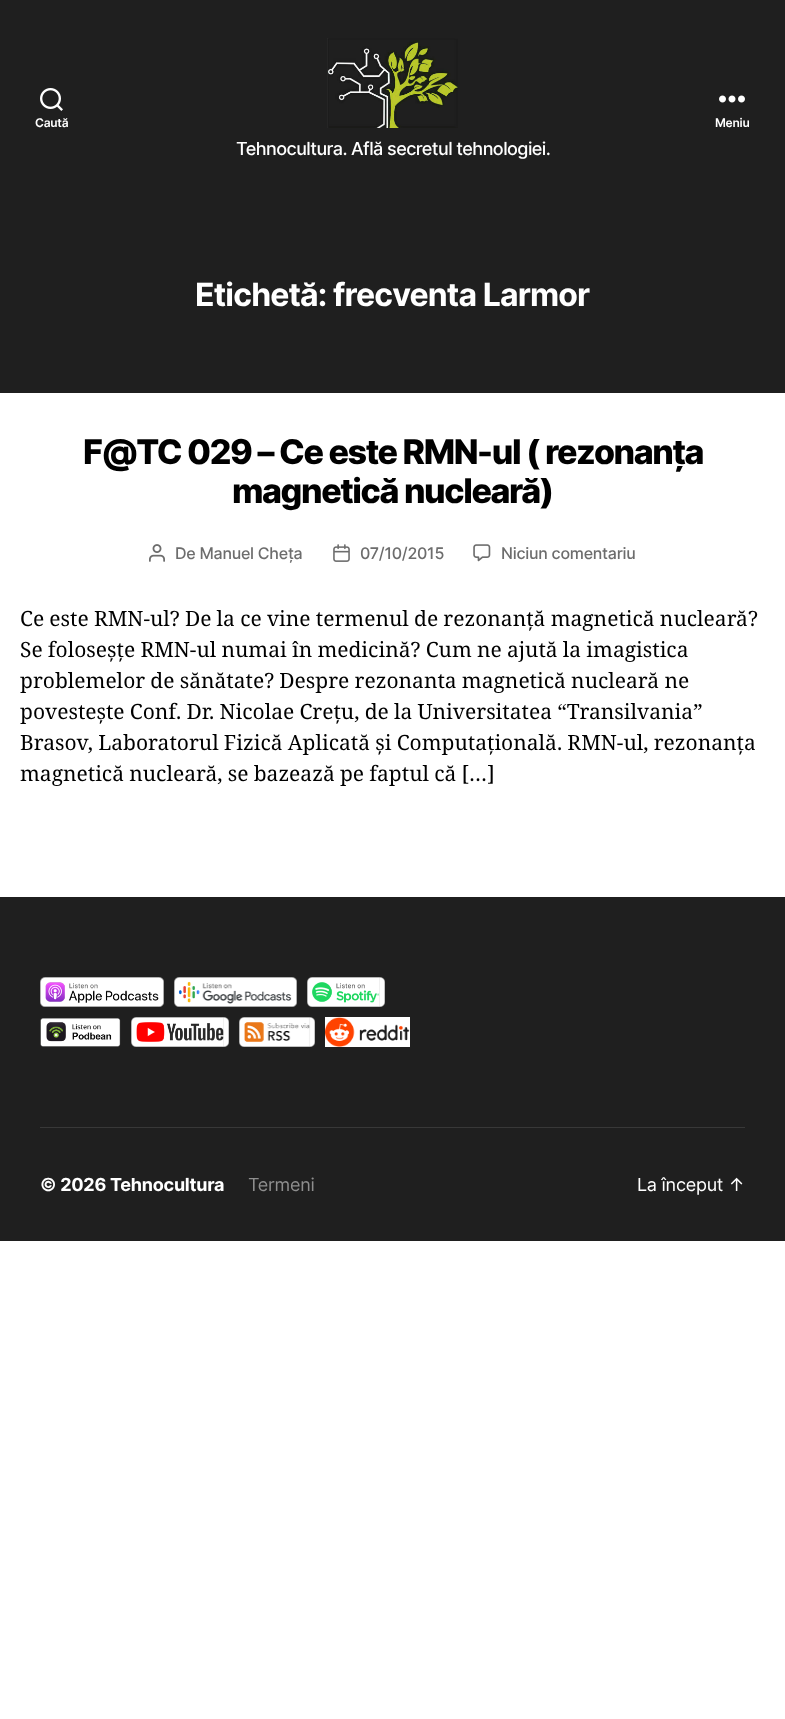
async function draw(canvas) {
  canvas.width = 785
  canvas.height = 1719
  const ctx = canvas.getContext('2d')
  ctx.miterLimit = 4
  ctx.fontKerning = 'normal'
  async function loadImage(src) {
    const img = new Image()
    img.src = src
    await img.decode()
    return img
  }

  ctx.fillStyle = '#fff'
  ctx.fillRect(0, 0, 785, 1719)
  ctx.fillStyle = '#1f1f1f'
  ctx.fillRect(0, 0, 785, 393)
  ctx.drawImage(await loadImage('image0.png'), 40, 88, 23, 23)
  ctx.letterSpacing = '-0.25px'
  ctx.font = '600 12px Inter'
  ctx.fillStyle = '#fff'
  ctx.fillText('Caută', 35, 127)
  ctx.drawImage(await loadImage('image1.png'), 719, 95, 26, 8)
  ctx.fillText('Meniu', 715, 127)
  ctx.drawImage(await loadImage('image2.png'), 327, 38, 131, 90)
  ctx.letterSpacing = '-0.55px'
  ctx.font = '500 18px Inter'
  ctx.fillText('Tehnocultura. Află secretul tehnologiei.', 236, 155)
  ctx.letterSpacing = '-0.85px'
  ctx.font = 'bold 32px Inter'
  ctx.fillText('Etichetă: frecventa Larmor', 195, 306)
  ctx.letterSpacing = '-1.4px'
  ctx.font = '800 34px Inter'
  ctx.fillStyle = '#000'
  ctx.fillText('F@TC 029 – Ce este RMN-ul ( rezonanța', 83, 464)
  ctx.fillText('magnetică nucleară)', 232, 503)
  ctx.drawImage(await loadImage('image3.png'), 149, 544, 16, 18)
  ctx.letterSpacing = '-0.25px'
  ctx.font = '500 16px Inter'
  ctx.fillStyle = '#6d6d6d'
  ctx.fillText('De Manuel Cheța', 175, 559)
  ctx.drawImage(await loadImage('image4.png'), 333, 544, 17, 18)
  ctx.fillText('07/10/2015', 360, 559)
  ctx.drawImage(await loadImage('image5.png'), 473, 544, 18, 18)
  ctx.fillText('Niciun comentariu', 501, 559)
  ctx.letterSpacing = '0px'
  ctx.wordSpacing = '-0.25px'
  ctx.font = '21px Noto Serif'
  ctx.fillStyle = '#000'
  ctx.fillText('Ce este RMN-ul? De la ce vine termenul de rezonanță magnetică nucleară?', 20, 626)
  ctx.fillText('Se foloseșțe RMN-ul numai în medicină? Cum ne ajută la imagistica', 20, 657)
  ctx.fillText('problemelor de sănătate? Despre rezonanta magnetică nucleară ne', 20, 688)
  ctx.fillText('povestește Conf. Dr. Nicolae Crețu, de la Universitatea “Transilvania”', 20, 719)
  ctx.fillText('Brasov, Laboratorul Fizică Aplicată și Computațională. RMN-ul, rezonanța', 20, 750)
  ctx.fillText('magnetică nucleară, se bazează pe faptul că […]', 20, 781)
  ctx.fillStyle = '#1f1f1f'
  ctx.fillRect(0, 897, 785, 344)
  ctx.fillStyle = '#383838'
  ctx.fillRect(40, 1127, 705, 1)
  ctx.drawImage(await loadImage('image6.png'), 40, 977, 124, 30)
  ctx.drawImage(await loadImage('image7.png'), 174, 977, 123, 30)
  ctx.drawImage(await loadImage('image8.png'), 307, 977, 78, 30)
  ctx.drawImage(await loadImage('image9.png'), 40, 1018, 81, 29)
  ctx.drawImage(await loadImage('image10.png'), 131, 1017, 98, 30)
  ctx.drawImage(await loadImage('image11.png'), 239, 1017, 76, 30)
  ctx.fillStyle = '#fff'
  ctx.fillRect(325, 1017, 85, 30)
  ctx.drawImage(await loadImage('image12.png'), 325, 1017, 85, 30)
  ctx.letterSpacing = '-0.25px'
  ctx.wordSpacing = '0px'
  ctx.font = 'bold 18px Inter'
  ctx.fillText('© 2026 Tehnocultura', 40, 1191)
  ctx.font = '18px Inter'
  ctx.fillStyle = '#8e8e8e'
  ctx.fillText('Termeni', 248, 1191)
  ctx.fillStyle = '#fff'
  ctx.fillText('La început ↑', 637, 1191)
}

draw(document.querySelector('canvas'))
